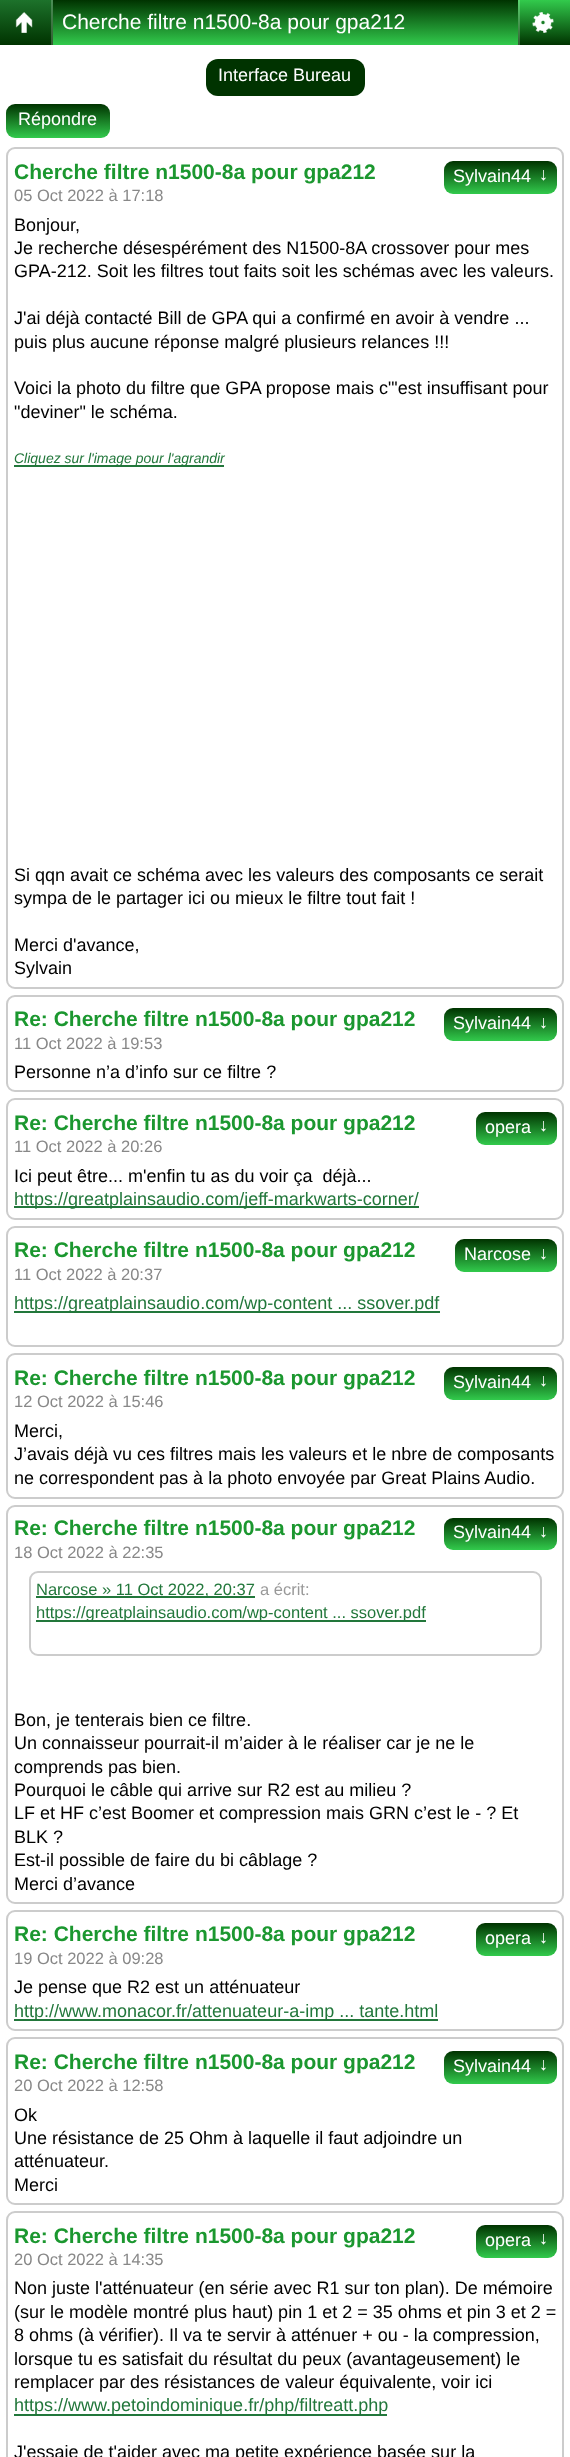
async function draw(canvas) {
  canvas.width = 570
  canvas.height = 2457
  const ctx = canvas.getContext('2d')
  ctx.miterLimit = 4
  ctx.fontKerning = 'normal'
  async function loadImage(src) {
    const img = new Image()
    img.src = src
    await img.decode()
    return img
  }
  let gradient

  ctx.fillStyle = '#fff'
  ctx.fillRect(0, 0, 570, 2457)
  gradient = ctx.createLinearGradient(285, 0, 285, 45)
  gradient.addColorStop(0, '#030')
  gradient.addColorStop(1, '#32ca4c')
  ctx.fillStyle = gradient
  ctx.fillRect(53, 0, 465, 45)
  gradient = ctx.createLinearGradient(26, 0, 26, 45)
  gradient.addColorStop(0, '#1d722b')
  gradient.addColorStop(1, '#030')
  ctx.fillStyle = gradient
  ctx.fillRect(0, 0, 51, 45)
  gradient = ctx.createLinearGradient(26, 0, 26, 45)
  gradient.addColorStop(0, '#4a8e55')
  gradient.addColorStop(1, '#335c33')
  ctx.fillStyle = gradient
  ctx.fillRect(51, 0, 2, 45)
  ctx.drawImage(await loadImage('image0.png'), 15, 12, 18, 21)
  ctx.font = '21px Liberation Sans'
  ctx.fillStyle = '#fff'
  ctx.fillText('Cherche filtre n1500-8a pour gpa212', 62, 29)
  gradient = ctx.createLinearGradient(544, 0, 544, 45)
  gradient.addColorStop(0, '#32ca4c')
  gradient.addColorStop(1, '#030')
  ctx.fillStyle = gradient
  ctx.fillRect(520, 0, 50, 45)
  gradient = ctx.createLinearGradient(544, 0, 544, 45)
  gradient.addColorStop(0, '#5bd570')
  gradient.addColorStop(1, '#335c33')
  ctx.fillStyle = gradient
  ctx.fillRect(518, 0, 2, 45)
  ctx.drawImage(await loadImage('image1.png'), 532, 12, 22, 21)
  ctx.fillStyle = '#030'
  ctx.beginPath()
  ctx.roundRect(206, 59, 159, 37, 12)
  ctx.fill()
  ctx.font = '18px Liberation Sans'
  ctx.fillStyle = '#fff'
  ctx.fillText('Interface Bureau', 218, 81)
  gradient = ctx.createLinearGradient(58, 104, 58, 138)
  gradient.addColorStop(0, '#030')
  gradient.addColorStop(1, '#32ca4c')
  ctx.fillStyle = gradient
  ctx.beginPath()
  ctx.roundRect(6, 104, 104, 34, 9)
  ctx.fill()
  ctx.fillStyle = '#fff'
  ctx.fillText('Répondre', 18, 125)
  ctx.beginPath()
  ctx.roundRect(7, 148, 556, 840, 8)
  ctx.strokeStyle = '#ccc'
  ctx.lineWidth = 2
  ctx.stroke()
  ctx.font = 'bold 21px Liberation Sans'
  ctx.fillStyle = '#1b972f'
  ctx.fillText('Cherche filtre n1500-8a pour gpa212', 14, 179)
  gradient = ctx.createLinearGradient(500, 161, 500, 194)
  gradient.addColorStop(0, '#030')
  gradient.addColorStop(1, '#32ca4c')
  ctx.fillStyle = gradient
  ctx.beginPath()
  ctx.roundRect(444, 161, 113, 33, 9)
  ctx.fill()
  ctx.font = '18px Liberation Sans'
  ctx.fillStyle = '#fff'
  ctx.fillText('Sylvain44', 453, 182)
  ctx.fillText('↓', 539, 180)
  ctx.font = '16.5px Liberation Sans'
  ctx.fillStyle = '#888'
  ctx.fillText('05 Oct 2022 à 17:18', 14, 201)
  ctx.font = '18px Liberation Sans'
  ctx.fillStyle = '#000'
  ctx.fillText('Bonjour,', 14, 231)
  ctx.fillText('Je recherche désespérément des N1500-8A crossover pour mes', 14, 254)
  ctx.fillText('GPA-212. Soit les filtres tout faits soit les schémas avec les valeurs.', 14, 277)
  ctx.fillText('J\'ai déjà contacté Bill de GPA qui a confirmé en avoir à vendre ...', 14, 324)
  ctx.fillText('puis plus aucune réponse malgré plusieurs relances !!!', 14, 348)
  ctx.fillText('Voici la photo du filtre que GPA propose mais c"\'est insuffisant pour', 14, 394)
  ctx.fillText('"deviner" le schéma.', 14, 418)
  ctx.fillStyle = '#22773b'
  ctx.fillRect(14, 465, 210, 2)
  ctx.font = 'italic 14px Liberation Sans'
  ctx.fillText('Cliquez sur l\'image pour l\'agrandir', 14, 463)
  ctx.font = '18px Liberation Sans'
  ctx.fillStyle = '#000'
  ctx.fillText('Si qqn avait ce schéma avec les valeurs des composants ce serait', 14, 881)
  ctx.fillText('sympa de le partager ici ou mieux le filtre tout fait !', 14, 904)
  ctx.fillText('Merci d\'avance,', 14, 951)
  ctx.fillText('Sylvain', 14, 974)
  ctx.beginPath()
  ctx.roundRect(7, 996, 556, 95, 8)
  ctx.stroke()
  ctx.font = 'bold 21px Liberation Sans'
  ctx.fillStyle = '#1b972f'
  ctx.fillText('Re: Cherche filtre n1500-8a pour gpa212', 14, 1026)
  gradient = ctx.createLinearGradient(500, 1008, 500, 1041)
  gradient.addColorStop(0, '#030')
  gradient.addColorStop(1, '#32ca4c')
  ctx.fillStyle = gradient
  ctx.beginPath()
  ctx.roundRect(444, 1008, 113, 33, 9)
  ctx.fill()
  ctx.font = '18px Liberation Sans'
  ctx.fillStyle = '#fff'
  ctx.fillText('Sylvain44', 453, 1029)
  ctx.fillText('↓', 539, 1028)
  ctx.font = '16.5px Liberation Sans'
  ctx.fillStyle = '#888'
  ctx.fillText('11 Oct 2022 à 19:53', 14, 1049)
  ctx.font = '18px Liberation Sans'
  ctx.fillStyle = '#000'
  ctx.fillText('Personne n’a d’info sur ce filtre ?', 14, 1078)
  ctx.beginPath()
  ctx.roundRect(7, 1099, 556, 120, 8)
  ctx.stroke()
  ctx.font = 'bold 21px Liberation Sans'
  ctx.fillStyle = '#1b972f'
  ctx.fillText('Re: Cherche filtre n1500-8a pour gpa212', 14, 1130)
  gradient = ctx.createLinearGradient(516, 1112, 516, 1145)
  gradient.addColorStop(0, '#030')
  gradient.addColorStop(1, '#32ca4c')
  ctx.fillStyle = gradient
  ctx.beginPath()
  ctx.roundRect(476, 1112, 81, 33, 9)
  ctx.fill()
  ctx.font = '18px Liberation Sans'
  ctx.fillStyle = '#fff'
  ctx.fillText('opera', 485, 1133)
  ctx.fillText('↓', 539, 1131)
  ctx.font = '16.5px Liberation Sans'
  ctx.fillStyle = '#888'
  ctx.fillText('11 Oct 2022 à 20:26', 14, 1152)
  ctx.font = '18px Liberation Sans'
  ctx.fillStyle = '#000'
  ctx.fillText('Ici peut être... m\'enfin tu as du voir ça  déjà...', 14, 1182)
  ctx.fillStyle = '#22773b'
  ctx.fillRect(14, 1206, 405, 2)
  ctx.fillText('https://greatplainsaudio.com/jeff-markwarts-corner/', 14, 1205)
  ctx.beginPath()
  ctx.roundRect(7, 1227, 556, 119, 8)
  ctx.stroke()
  ctx.font = 'bold 21px Liberation Sans'
  ctx.fillStyle = '#1b972f'
  ctx.fillText('Re: Cherche filtre n1500-8a pour gpa212', 14, 1257)
  gradient = ctx.createLinearGradient(506, 1239, 506, 1272)
  gradient.addColorStop(0, '#030')
  gradient.addColorStop(1, '#32ca4c')
  ctx.fillStyle = gradient
  ctx.beginPath()
  ctx.roundRect(455, 1239, 102, 33, 9)
  ctx.fill()
  ctx.font = '18px Liberation Sans'
  ctx.fillStyle = '#fff'
  ctx.fillText('Narcose', 464, 1260)
  ctx.fillText('↓', 539, 1259)
  ctx.font = '16.5px Liberation Sans'
  ctx.fillStyle = '#888'
  ctx.fillText('11 Oct 2022 à 20:37', 14, 1280)
  ctx.fillStyle = '#22773b'
  ctx.fillRect(14, 1311, 426, 2)
  ctx.font = '18px Liberation Sans'
  ctx.fillText('https://greatplainsaudio.com/wp-content ... ssover.pdf', 14, 1309)
  ctx.beginPath()
  ctx.roundRect(7, 1354, 556, 144, 8)
  ctx.stroke()
  ctx.font = 'bold 21px Liberation Sans'
  ctx.fillStyle = '#1b972f'
  ctx.fillText('Re: Cherche filtre n1500-8a pour gpa212', 14, 1385)
  gradient = ctx.createLinearGradient(500, 1367, 500, 1400)
  gradient.addColorStop(0, '#030')
  gradient.addColorStop(1, '#32ca4c')
  ctx.fillStyle = gradient
  ctx.beginPath()
  ctx.roundRect(444, 1367, 113, 33, 9)
  ctx.fill()
  ctx.font = '18px Liberation Sans'
  ctx.fillStyle = '#fff'
  ctx.fillText('Sylvain44', 453, 1388)
  ctx.fillText('↓', 539, 1386)
  ctx.font = '16.5px Liberation Sans'
  ctx.fillStyle = '#888'
  ctx.fillText('12 Oct 2022 à 15:46', 14, 1407)
  ctx.font = '18px Liberation Sans'
  ctx.fillStyle = '#000'
  ctx.fillText('Merci,', 14, 1437)
  ctx.fillText('J’avais déjà vu ces filtres mais les valeurs et le nbre de composants', 14, 1460)
  ctx.fillText('ne correspondent pas à la photo envoyée par Great Plains Audio.', 14, 1484)
  ctx.beginPath()
  ctx.roundRect(7, 1506, 556, 397, 8)
  ctx.stroke()
  ctx.font = 'bold 21px Liberation Sans'
  ctx.fillStyle = '#1b972f'
  ctx.fillText('Re: Cherche filtre n1500-8a pour gpa212', 14, 1535)
  gradient = ctx.createLinearGradient(500, 1518, 500, 1550)
  gradient.addColorStop(0, '#030')
  gradient.addColorStop(1, '#32ca4c')
  ctx.fillStyle = gradient
  ctx.beginPath()
  ctx.roundRect(444, 1518, 113, 32, 9)
  ctx.fill()
  ctx.font = '18px Liberation Sans'
  ctx.fillStyle = '#fff'
  ctx.fillText('Sylvain44', 453, 1538)
  ctx.fillText('↓', 539, 1537)
  ctx.font = '16.5px Liberation Sans'
  ctx.fillStyle = '#888'
  ctx.fillText('18 Oct 2022 à 22:35', 14, 1558)
  ctx.beginPath()
  ctx.roundRect(30, 1572, 511, 83, 8)
  ctx.stroke()
  ctx.fillStyle = '#22773b'
  ctx.fillRect(36, 1596, 219, 2)
  ctx.fillText('Narcose » 11 Oct 2022, 20:37', 36, 1595)
  ctx.fillStyle = '#999'
  ctx.fillText('a écrit:', 260, 1595)
  ctx.fillStyle = '#22773b'
  ctx.fillRect(36, 1620, 390, 2)
  ctx.fillText('https://greatplainsaudio.com/wp-content ... ssover.pdf', 36, 1618)
  ctx.font = '18px Liberation Sans'
  ctx.fillStyle = '#000'
  ctx.fillText('Bon, je tenterais bien ce filtre.', 14, 1726)
  ctx.fillText('Un connaisseur pourrait-il m’aider à le réaliser car je ne le', 14, 1749)
  ctx.fillText('comprends pas bien.', 14, 1773)
  ctx.fillText('Pourquoi le câble qui arrive sur R2 est au milieu ?', 14, 1796)
  ctx.fillText('LF et HF c’est Boomer et compression mais GRN c’est le - ? Et', 14, 1819)
  ctx.fillText('BLK ?', 14, 1843)
  ctx.fillText('Est-il possible de faire du bi câblage ?', 14, 1866)
  ctx.fillText('Merci d’avance', 14, 1890)
  ctx.beginPath()
  ctx.roundRect(7, 1911, 556, 119, 8)
  ctx.stroke()
  ctx.font = 'bold 21px Liberation Sans'
  ctx.fillStyle = '#1b972f'
  ctx.fillText('Re: Cherche filtre n1500-8a pour gpa212', 14, 1941)
  gradient = ctx.createLinearGradient(516, 1923, 516, 1956)
  gradient.addColorStop(0, '#030')
  gradient.addColorStop(1, '#32ca4c')
  ctx.fillStyle = gradient
  ctx.beginPath()
  ctx.roundRect(476, 1923, 81, 33, 9)
  ctx.fill()
  ctx.font = '18px Liberation Sans'
  ctx.fillStyle = '#fff'
  ctx.fillText('opera', 485, 1944)
  ctx.fillText('↓', 539, 1943)
  ctx.font = '16.5px Liberation Sans'
  ctx.fillStyle = '#888'
  ctx.fillText('19 Oct 2022 à 09:28', 14, 1964)
  ctx.font = '18px Liberation Sans'
  ctx.fillStyle = '#000'
  ctx.fillText('Je pense que R2 est un atténuateur', 14, 1993)
  ctx.fillStyle = '#22773b'
  ctx.fillRect(14, 2019, 424, 2)
  ctx.fillText('http://www.monacor.fr/attenuateur-a-imp ... tante.html', 14, 2017)
  ctx.beginPath()
  ctx.roundRect(7, 2038, 556, 166, 8)
  ctx.stroke()
  ctx.font = 'bold 21px Liberation Sans'
  ctx.fillStyle = '#1b972f'
  ctx.fillText('Re: Cherche filtre n1500-8a pour gpa212', 14, 2069)
  gradient = ctx.createLinearGradient(500, 2051, 500, 2084)
  gradient.addColorStop(0, '#030')
  gradient.addColorStop(1, '#32ca4c')
  ctx.fillStyle = gradient
  ctx.beginPath()
  ctx.roundRect(444, 2051, 113, 33, 9)
  ctx.fill()
  ctx.font = '18px Liberation Sans'
  ctx.fillStyle = '#fff'
  ctx.fillText('Sylvain44', 453, 2072)
  ctx.fillText('↓', 539, 2070)
  ctx.font = '16.5px Liberation Sans'
  ctx.fillStyle = '#888'
  ctx.fillText('20 Oct 2022 à 12:58', 14, 2091)
  ctx.font = '18px Liberation Sans'
  ctx.fillStyle = '#000'
  ctx.fillText('Ok', 14, 2121)
  ctx.fillText('Une résistance de 25 Ohm à laquelle il faut adjoindre un', 14, 2144)
  ctx.fillText('atténuateur.', 14, 2167)
  ctx.fillText('Merci', 14, 2191)
  ctx.beginPath()
  ctx.roundRect(7, 2212, 556, 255, 8)
  ctx.stroke()
  ctx.font = 'bold 21px Liberation Sans'
  ctx.fillStyle = '#1b972f'
  ctx.fillText('Re: Cherche filtre n1500-8a pour gpa212', 14, 2243)
  gradient = ctx.createLinearGradient(516, 2225, 516, 2258)
  gradient.addColorStop(0, '#030')
  gradient.addColorStop(1, '#32ca4c')
  ctx.fillStyle = gradient
  ctx.beginPath()
  ctx.roundRect(476, 2225, 81, 33, 9)
  ctx.fill()
  ctx.font = '18px Liberation Sans'
  ctx.fillStyle = '#fff'
  ctx.fillText('opera', 485, 2246)
  ctx.fillText('↓', 539, 2244)
  ctx.font = '16.5px Liberation Sans'
  ctx.fillStyle = '#888'
  ctx.fillText('20 Oct 2022 à 14:35', 14, 2265)
  ctx.font = '18px Liberation Sans'
  ctx.fillStyle = '#000'
  ctx.fillText('Non juste l\'atténuateur (en série avec R1 sur ton plan). De mémoire', 14, 2294)
  ctx.fillText('(sur le modèle montré plus haut) pin 1 et 2 = 35 ohms et pin 3 et 2 =', 14, 2318)
  ctx.fillText('8 ohms (à vérifier). Il va te servir à atténuer + ou - la compression,', 14, 2341)
  ctx.fillText('lorsque tu es satisfait du résultat du peux (avantageusement) le', 14, 2365)
  ctx.fillText('remplacer par des résistances de valeur équivalente, voir ici', 14, 2388)
  ctx.fillStyle = '#22773b'
  ctx.fillRect(14, 2414, 373, 2)
  ctx.fillText('https://www.petoindominique.fr/php/filtreatt.php', 14, 2411)
  ctx.fillStyle = '#000'
  ctx.fillText('J\'essaie de t\'aider avec ma petite expérience basée sur la', 14, 2458)
}

draw(document.querySelector('canvas'))
